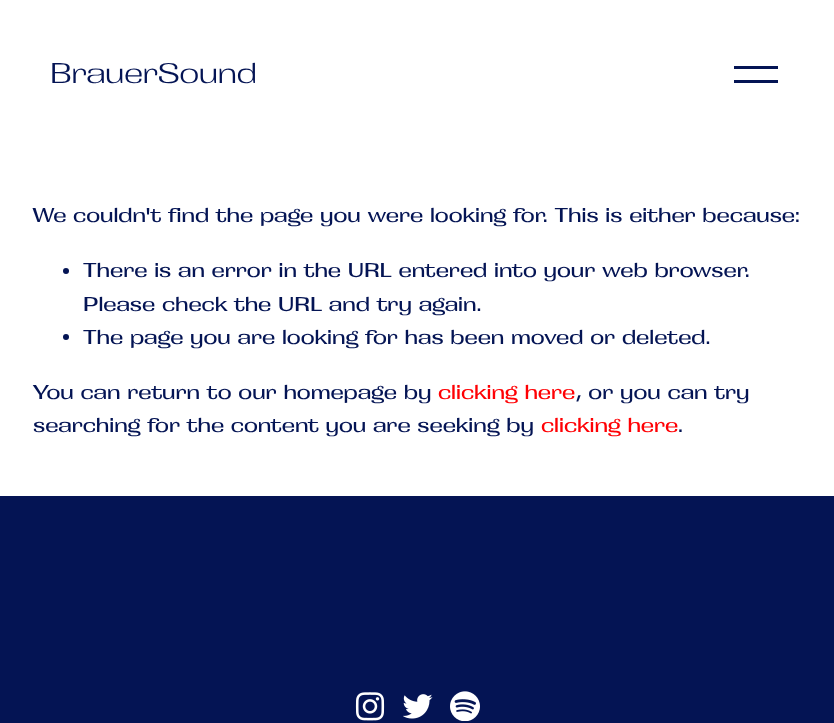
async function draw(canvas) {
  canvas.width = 834
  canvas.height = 723
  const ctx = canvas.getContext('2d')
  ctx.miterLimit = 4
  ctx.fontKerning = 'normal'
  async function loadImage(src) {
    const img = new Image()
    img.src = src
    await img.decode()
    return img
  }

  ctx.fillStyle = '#fff'
  ctx.fillRect(0, 0, 834, 723)
  ctx.font = '300 30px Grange'
  ctx.fillStyle = '#041454'
  ctx.fillText('BrauerSound', 50, 83)
  ctx.fillRect(734, 66, 44, 3)
  ctx.fillRect(734, 80, 44, 3)
  ctx.font = '500 21px Grange'
  ctx.fillText('We couldn\'t find the page you were looking for. This is either because:', 33, 222)
  ctx.beginPath()
  ctx.arc(66, 271, 3, 0, 2 * Math.PI)
  ctx.fill()
  ctx.fillText('There is an error in the URL entered into your web browser.', 83, 277)
  ctx.fillText('Please check the URL and try again.', 83, 311)
  ctx.beginPath()
  ctx.arc(66, 337, 3, 0, 2 * Math.PI)
  ctx.fill()
  ctx.fillText('The page you are looking for has been moved or deleted.', 83, 344)
  ctx.fillText('You can return to our homepage by', 33, 399)
  ctx.fillStyle = '#ff0004'
  ctx.fillText('clicking here', 438, 399)
  ctx.fillStyle = '#041454'
  ctx.fillText(', or you can try', 576, 399)
  ctx.fillText('searching for the content you are seeking by', 33, 432)
  ctx.fillStyle = '#ff0004'
  ctx.fillText('clicking here', 541, 432)
  ctx.fillStyle = '#041454'
  ctx.fillText('.', 678, 432)
  ctx.fillRect(0, 496, 834, 227)
  ctx.drawImage(await loadImage('image0.png'), 355, 692, 30, 29)
  ctx.drawImage(await loadImage('image1.png'), 403, 694, 30, 25)
  ctx.drawImage(await loadImage('image2.png'), 450, 691, 30, 30)
}

draw(document.querySelector('canvas'))
